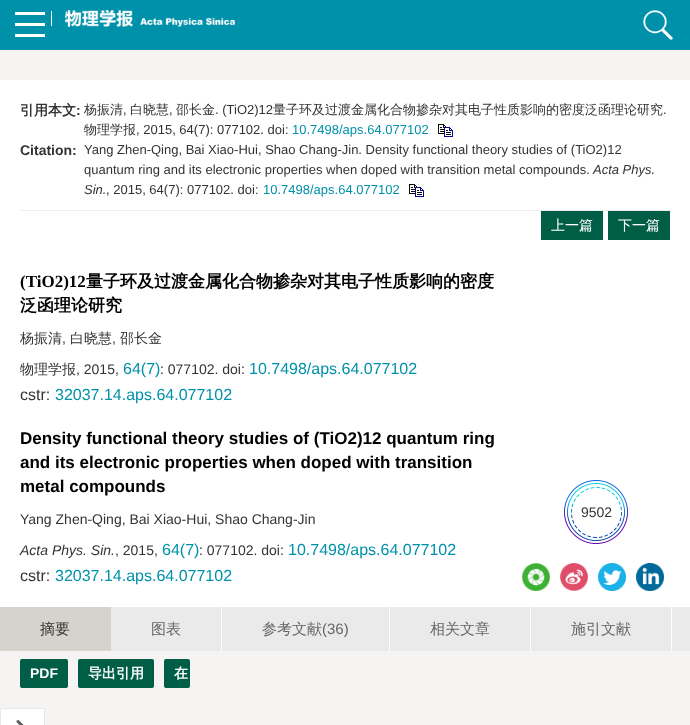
async function draw(canvas) {
  canvas.width = 690
  canvas.height = 725
  const ctx = canvas.getContext('2d')
  ctx.miterLimit = 4
  ctx.fontKerning = 'normal'
  async function loadImage(src) {
    const img = new Image()
    img.src = src
    await img.decode()
    return img
  }

  ctx.fillStyle = '#f6f4f2'
  ctx.fillRect(0, 0, 690, 725)
  ctx.fillStyle = '#0091aa'
  ctx.fillRect(0, 0, 690, 50)
  ctx.fillStyle = '#fff'
  ctx.fillRect(15, 12, 30, 3)
  ctx.fillRect(15, 23, 30, 3)
  ctx.fillRect(15, 34, 30, 3)
  ctx.fillRect(51, 11, 1, 15)
  ctx.drawImage(await loadImage('image0.png'), 65, 10, 170, 17)
  ctx.drawImage(await loadImage('image1.png'), 643, 10, 30, 30)
  ctx.fillRect(0, 80, 690, 527)
  ctx.fillStyle = '#eee'
  ctx.fillRect(20, 210, 650, 1)
  ctx.font = 'bold 14px WenQuanYi Zen Hei'
  ctx.fillStyle = '#333'
  ctx.fillText('引用本文', 20, 115)
  ctx.font = 'bold 14px Liberation Sans'
  ctx.fillText(':', 76, 115)
  ctx.font = '500 13px WenQuanYi Zen Hei'
  ctx.fillText('杨振清', 84, 114)
  ctx.font = '13px Liberation Sans'
  ctx.fillText(',', 123, 114)
  ctx.font = '500 13px WenQuanYi Zen Hei'
  ctx.fillText('白晓慧', 130, 114)
  ctx.font = '13px Liberation Sans'
  ctx.fillText(',', 169, 114)
  ctx.font = '500 13px WenQuanYi Zen Hei'
  ctx.fillText('邵长金', 176, 114)
  ctx.font = '13px Liberation Sans'
  ctx.fillText('. (TiO2)12', 215, 114)
  ctx.font = '500 13px WenQuanYi Zen Hei'
  ctx.fillText('量子环及过渡金属化合物掺杂对其电子性质影响的密度泛函理论研究', 273, 114)
  ctx.font = '13px Liberation Sans'
  ctx.fillText('.', 663, 114)
  ctx.font = '500 13px WenQuanYi Zen Hei'
  ctx.fillText('物理学报', 84, 134)
  ctx.font = '13px Liberation Sans'
  ctx.fillText(', 2015, 64(7): 077102. doi:', 136, 134)
  ctx.fillStyle = '#0091aa'
  ctx.fillText('10.7498/aps.64.077102', 292, 134)
  ctx.drawImage(await loadImage('image2.png'), 438, 124, 15, 13)
  ctx.font = 'bold 14px Liberation Sans'
  ctx.fillStyle = '#333'
  ctx.fillText('Citation:', 20, 155)
  ctx.font = '13px Liberation Sans'
  ctx.fillText('Yang Zhen-Qing, Bai Xiao-Hui, Shao Chang-Jin. Density functional theory studies of (TiO2)12', 84, 154)
  ctx.fillText('quantum ring and its electronic properties when doped with transition metal compounds.', 84, 174)
  ctx.font = 'italic 13px Liberation Sans'
  ctx.fillText('Acta Phys.', 593, 174)
  ctx.fillText('Sin.', 84, 194)
  ctx.font = '13px Liberation Sans'
  ctx.fillText(', 2015, 64(7): 077102. doi:', 106, 194)
  ctx.fillStyle = '#0091aa'
  ctx.fillText('10.7498/aps.64.077102', 263, 194)
  ctx.drawImage(await loadImage('image2.png'), 409, 184, 15, 13)
  ctx.fillStyle = '#005e46'
  ctx.fillRect(541, 211, 62, 29)
  ctx.font = '500 14px WenQuanYi Zen Hei'
  ctx.fillStyle = '#fff'
  ctx.fillText('上一篇', 551, 230)
  ctx.fillStyle = '#005e46'
  ctx.fillRect(608, 211, 62, 29)
  ctx.fillStyle = '#fff'
  ctx.fillText('下一篇', 618, 230)
  ctx.font = 'bold 17px Liberation Serif'
  ctx.fillStyle = '#000'
  ctx.fillText('(TiO2)12', 20, 287)
  ctx.font = 'bold 17px WenQuanYi Zen Hei'
  ctx.fillText('量子环及过渡金属化合物掺杂对其电子性质影响的密度', 86, 287)
  ctx.fillText('泛函理论研究', 20, 311)
  ctx.font = '500 14px WenQuanYi Zen Hei'
  ctx.fillStyle = '#333'
  ctx.fillText('杨振清', 20, 343)
  ctx.font = '14px Liberation Sans'
  ctx.fillText(',', 62, 343)
  ctx.font = '500 14px WenQuanYi Zen Hei'
  ctx.fillText('白晓慧', 70, 343)
  ctx.font = '14px Liberation Sans'
  ctx.fillText(',', 112, 343)
  ctx.font = '500 14px WenQuanYi Zen Hei'
  ctx.fillText('邵长金', 120, 343)
  ctx.fillText('物理学报', 20, 374)
  ctx.font = '14px Liberation Sans'
  ctx.fillText(', 2015,', 76, 374)
  ctx.font = '16px Liberation Sans'
  ctx.fillStyle = '#0091aa'
  ctx.fillText('64(7)', 123, 374)
  ctx.font = '14px Liberation Sans'
  ctx.fillStyle = '#333'
  ctx.fillText(': 077102. doi:', 160, 374)
  ctx.font = '16px Liberation Sans'
  ctx.fillStyle = '#0091aa'
  ctx.fillText('10.7498/aps.64.077102', 249, 374)
  ctx.fillStyle = '#333'
  ctx.fillText('cstr:', 20, 400)
  ctx.fillStyle = '#0091aa'
  ctx.fillText('32037.14.aps.64.077102', 55, 400)
  ctx.font = 'bold 17px Liberation Sans'
  ctx.fillStyle = '#000'
  ctx.fillText('Density functional theory studies of (TiO2)12 quantum ring', 20, 444)
  ctx.fillText('and its electronic properties when doped with transition', 20, 468)
  ctx.fillText('metal compounds', 20, 492)
  ctx.font = '14px Liberation Sans'
  ctx.fillStyle = '#333'
  ctx.fillText('Yang Zhen-Qing, Bai Xiao-Hui, Shao Chang-Jin', 20, 524)
  ctx.font = 'italic 14px Liberation Sans'
  ctx.fillText('Acta Phys. Sin.', 20, 555)
  ctx.font = '14px Liberation Sans'
  ctx.fillText(', 2015,', 115, 555)
  ctx.font = '16px Liberation Sans'
  ctx.fillStyle = '#0091aa'
  ctx.fillText('64(7)', 162, 555)
  ctx.font = '14px Liberation Sans'
  ctx.fillStyle = '#333'
  ctx.fillText(': 077102. doi:', 199, 555)
  ctx.font = '16px Liberation Sans'
  ctx.fillStyle = '#0091aa'
  ctx.fillText('10.7498/aps.64.077102', 288, 555)
  ctx.fillStyle = '#333'
  ctx.fillText('cstr:', 20, 581)
  ctx.fillStyle = '#0091aa'
  ctx.fillText('32037.14.aps.64.077102', 55, 581)
  ctx.drawImage(await loadImage('image3.png'), 564, 480, 64, 64)
  ctx.font = '14px Liberation Sans'
  ctx.fillStyle = '#333'
  ctx.fillText('9502', 581, 517)
  ctx.drawImage(await loadImage('image4.png'), 522, 563, 28, 28)
  ctx.drawImage(await loadImage('image5.png'), 560, 563, 28, 28)
  ctx.drawImage(await loadImage('image6.png'), 598, 563, 28, 28)
  ctx.drawImage(await loadImage('image7.png'), 636, 563, 28, 28)
  ctx.fillStyle = '#eaeaea'
  ctx.fillRect(111, 607, 579, 44)
  ctx.fillStyle = '#d6d2cc'
  ctx.fillRect(0, 607, 111, 44)
  ctx.font = '500 15px WenQuanYi Zen Hei'
  ctx.fillStyle = '#333'
  ctx.fillText('摘要', 40, 634)
  ctx.fillStyle = '#fff'
  ctx.fillRect(221, 607, 1, 44)
  ctx.fillStyle = '#666'
  ctx.fillText('图表', 151, 634)
  ctx.fillStyle = '#fff'
  ctx.fillRect(389, 607, 1, 44)
  ctx.fillStyle = '#666'
  ctx.fillText('参考文献', 262, 634)
  ctx.font = '15px Liberation Sans'
  ctx.fillText('(36)', 322, 634)
  ctx.fillStyle = '#fff'
  ctx.fillRect(530, 607, 1, 44)
  ctx.font = '500 15px WenQuanYi Zen Hei'
  ctx.fillStyle = '#666'
  ctx.fillText('相关文章', 430, 634)
  ctx.fillStyle = '#fff'
  ctx.fillRect(671, 607, 1, 44)
  ctx.fillStyle = '#666'
  ctx.fillText('施引文献', 571, 634)
  ctx.fillStyle = '#005e46'
  ctx.beginPath()
  ctx.roundRect(20, 659, 48, 29, 2)
  ctx.fill()
  ctx.font = 'bold 14px Liberation Sans'
  ctx.fillStyle = '#fff'
  ctx.fillText('PDF', 30, 678)
  ctx.fillStyle = '#005e46'
  ctx.beginPath()
  ctx.roundRect(78, 659, 76, 29, 2)
  ctx.fill()
  ctx.font = 'bold 14px WenQuanYi Zen Hei'
  ctx.fillStyle = '#fff'
  ctx.fillText('导出引用', 88, 678)
  ctx.beginPath()
  ctx.roundRect(164, 659, 26, 2, 1)
  ctx.fill()
  ctx.fillStyle = '#005e46'
  ctx.beginPath()
  ctx.roundRect(164, 659, 26, 29, 2)
  ctx.fill()
  ctx.fillStyle = '#fff'
  ctx.fillText('在', 174, 678)
  ctx.drawImage(await loadImage('image8.png'), 0, 708, 45, 17)
}

draw(document.querySelector('canvas'))
